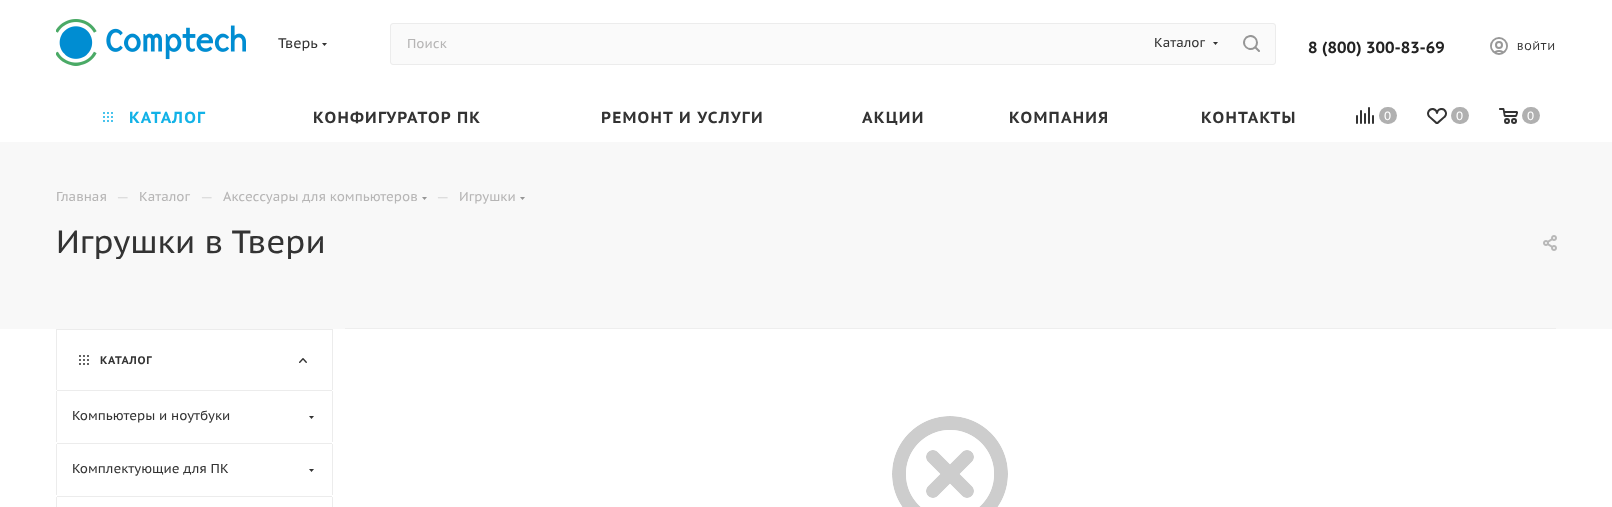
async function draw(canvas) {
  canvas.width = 1612
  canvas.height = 507
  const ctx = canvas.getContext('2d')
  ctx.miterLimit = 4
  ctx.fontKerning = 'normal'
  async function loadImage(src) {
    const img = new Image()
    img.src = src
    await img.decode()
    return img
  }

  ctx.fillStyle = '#fff'
  ctx.fillRect(0, 0, 1612, 507)
  ctx.drawImage(await loadImage('image0.png'), 56, 19, 190, 47)
  ctx.font = '14px PT Sans Caption'
  ctx.fillStyle = '#333'
  ctx.fillText('Тверь', 278, 48)
  ctx.drawImage(await loadImage('image1.png'), 322, 43, 5, 3)
  ctx.fillStyle = '#fafafa'
  ctx.beginPath()
  ctx.roundRect(390.5, 23.5, 885, 41, 2.5)
  ctx.fill()
  ctx.strokeStyle = '#ececec'
  ctx.stroke()
  ctx.font = '13px PT Sans Caption'
  ctx.fillStyle = '#b6b5b5'
  ctx.fillText('Поиск', 407, 48)
  ctx.fillStyle = '#333'
  ctx.fillText('Каталог', 1154, 47)
  ctx.beginPath()
  ctx.moveTo(1213, 42)
  ctx.lineTo(1218, 42)
  ctx.lineTo(1215.5, 45)
  ctx.closePath()
  ctx.fill('evenodd')
  ctx.drawImage(await loadImage('image2.png'), 1243, 35, 17, 17)
  ctx.font = 'bold 16px PT Sans Caption'
  ctx.fillStyle = '#222'
  ctx.fillText('8 (800) 300-83-69', 1308, 53)
  ctx.drawImage(await loadImage('image3.png'), 1490, 37, 18, 18)
  ctx.letterSpacing = '0.75px'
  ctx.font = '10px PT Sans Caption'
  ctx.fillStyle = '#333'
  ctx.fillText('ВОЙТИ', 1517, 50)
  ctx.drawImage(await loadImage('image4.png'), 103, 112, 10, 10)
  ctx.letterSpacing = '1.25px'
  ctx.font = 'bold 16px PT Sans Caption'
  ctx.fillStyle = '#12b2e7'
  ctx.fillText('КАТАЛОГ', 129, 123)
  ctx.fillStyle = '#333'
  ctx.fillText('КОНФИГУРАТОР ПК', 313, 123)
  ctx.fillText('РЕМОНТ И УСЛУГИ', 601, 123)
  ctx.fillText('АКЦИИ', 862, 123)
  ctx.fillText('КОМПАНИЯ', 1009, 123)
  ctx.fillText('КОНТАКТЫ', 1201, 123)
  ctx.drawImage(await loadImage('image5.png'), 1356, 107, 18, 17)
  ctx.fillStyle = '#b0b0b0'
  ctx.beginPath()
  ctx.roundRect(1379, 107, 18, 17, 8.5)
  ctx.fill()
  ctx.letterSpacing = '0px'
  ctx.font = '12px PT Sans Caption'
  ctx.fillStyle = '#fff'
  ctx.fillText('0', 1384, 120)
  ctx.drawImage(await loadImage('image6.png'), 1427, 108, 20, 16)
  ctx.fillStyle = '#b0b0b0'
  ctx.beginPath()
  ctx.roundRect(1451, 107, 18, 17, 8.5)
  ctx.fill()
  ctx.fillStyle = '#fff'
  ctx.fillText('0', 1456, 120)
  ctx.drawImage(await loadImage('image7.png'), 1499, 108, 19, 16)
  ctx.fillStyle = '#b0b0b0'
  ctx.beginPath()
  ctx.roundRect(1522, 107, 18, 17, 8.5)
  ctx.fill()
  ctx.fillStyle = '#fff'
  ctx.fillText('0', 1527, 120)
  ctx.fillStyle = '#f8f8f8'
  ctx.fillRect(0, 142, 1612, 187)
  ctx.font = '13px PT Sans Caption'
  ctx.fillStyle = '#b6b5b5'
  ctx.fillText('Главная', 56, 201)
  ctx.font = '15px PT Sans Caption'
  ctx.fillStyle = '#ddd'
  ctx.fillText('—', 116, 202)
  ctx.font = '13px PT Sans Caption'
  ctx.fillStyle = '#b6b5b5'
  ctx.fillText('Каталог', 139, 201)
  ctx.font = '15px PT Sans Caption'
  ctx.fillStyle = '#ddd'
  ctx.fillText('—', 200, 202)
  ctx.font = '13px PT Sans Caption'
  ctx.fillStyle = '#b6b5b5'
  ctx.fillText('Аксессуары для компьютеров', 223, 201)
  ctx.fillStyle = '#969696'
  ctx.beginPath()
  ctx.moveTo(422, 197)
  ctx.lineTo(427, 197)
  ctx.lineTo(424.5, 200)
  ctx.closePath()
  ctx.fill('evenodd')
  ctx.font = '15px PT Sans Caption'
  ctx.fillStyle = '#ddd'
  ctx.fillText('—', 436, 202)
  ctx.font = '13px PT Sans Caption'
  ctx.fillStyle = '#b6b5b5'
  ctx.fillText('Игрушки', 459, 201)
  ctx.fillStyle = '#969696'
  ctx.beginPath()
  ctx.moveTo(520, 197)
  ctx.lineTo(525, 197)
  ctx.lineTo(522.5, 200)
  ctx.closePath()
  ctx.fill('evenodd')
  ctx.save()
  ctx.beginPath()
  ctx.rect(56, 223, 1454, 36)
  ctx.clip()
  ctx.font = '32px PT Sans Caption'
  ctx.fillStyle = '#333'
  ctx.fillText('Игрушки в Твери', 56, 253)
  ctx.restore()
  ctx.drawImage(await loadImage('image8.png'), 1543, 235, 14, 16)
  ctx.fillStyle = '#ececec'
  ctx.fillRect(56, 329, 277, 1)
  ctx.fillRect(332, 329, 1, 61)
  ctx.fillRect(56, 329, 1, 61)
  ctx.drawImage(await loadImage('image9.png'), 79, 355, 10, 10)
  ctx.letterSpacing = '0.75px'
  ctx.font = 'bold 11px PT Sans Caption'
  ctx.fillStyle = '#333'
  ctx.fillText('КАТАЛОГ', 100, 364)
  ctx.drawImage(await loadImage('image10.png'), 299, 358, 8, 5)
  ctx.fillStyle = '#ececec'
  ctx.fillRect(57, 390, 275, 1)
  ctx.fillRect(332, 391, 1, 51)
  ctx.fillRect(56, 391, 1, 51)
  ctx.letterSpacing = '0px'
  ctx.font = '13px PT Sans Caption'
  ctx.fillStyle = '#333'
  ctx.fillText('Компьютеры и ноутбуки', 72, 420)
  ctx.drawImage(await loadImage('image11.png'), 309, 416, 5, 3)
  ctx.fillStyle = '#ececec'
  ctx.fillRect(57, 443, 275, 1)
  ctx.fillRect(332, 444, 1, 51)
  ctx.fillRect(56, 444, 1, 51)
  ctx.fillStyle = '#333'
  ctx.fillText('Комплектующие для ПК', 72, 473)
  ctx.drawImage(await loadImage('image11.png'), 309, 469, 5, 3)
  ctx.fillStyle = '#ececec'
  ctx.fillRect(57, 496, 275, 1)
  ctx.fillRect(332, 497, 1, 10)
  ctx.fillRect(56, 497, 1, 10)
  ctx.fillStyle = '#eee'
  ctx.fillRect(345, 328, 1211, 1)
  ctx.drawImage(await loadImage('image12.png'), 892, 416, 116, 91)
}

draw(document.querySelector('canvas'))
